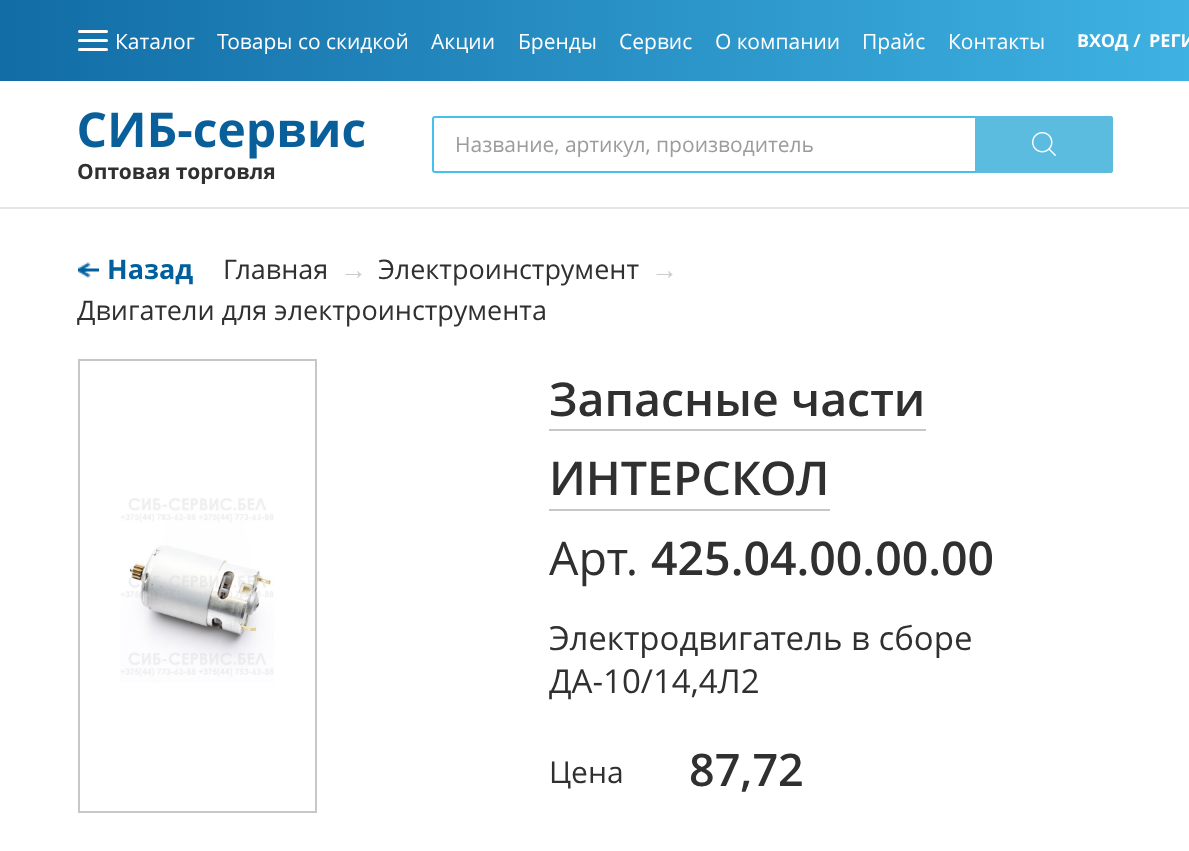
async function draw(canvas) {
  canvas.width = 1189
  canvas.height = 851
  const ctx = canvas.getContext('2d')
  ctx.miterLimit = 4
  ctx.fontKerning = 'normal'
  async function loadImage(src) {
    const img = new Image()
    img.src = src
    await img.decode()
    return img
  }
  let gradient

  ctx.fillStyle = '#fff'
  ctx.fillRect(0, 0, 1189, 851)
  gradient = ctx.createLinearGradient(0, 41, 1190, 40)
  gradient.addColorStop(0, '#126ca5')
  gradient.addColorStop(1, '#3eb2e2')
  ctx.fillStyle = gradient
  ctx.fillRect(0, 0, 1189, 81)
  ctx.fillStyle = '#fff'
  ctx.beginPath()
  ctx.roundRect(78, 30, 30, 3, 1.5)
  ctx.fill()
  ctx.beginPath()
  ctx.roundRect(78, 39, 30, 3, 1.5)
  ctx.fill()
  ctx.beginPath()
  ctx.roundRect(78, 48, 30, 3, 1.5)
  ctx.fill()
  ctx.font = '21px Open Sans'
  ctx.fillText('Каталог', 115, 49)
  ctx.fillText('Товары со скидкой', 217, 49)
  ctx.fillText('Акции', 431, 49)
  ctx.fillText('Бренды', 518, 49)
  ctx.fillText('Сервис', 619, 49)
  ctx.fillText('О компании', 715, 49)
  ctx.fillText('Прайс', 862, 49)
  ctx.fillText('Контакты', 948, 49)
  ctx.font = 'bold 18px Open Sans'
  ctx.fillText('ВХОД /', 1077, 47)
  ctx.fillText('РЕГИ', 1149, 47)
  ctx.fillStyle = '#e6e6e6'
  ctx.fillRect(0, 207, 1189, 2)
  ctx.beginPath()
  ctx.roundRect(433, 117, 679, 55, 2)
  ctx.strokeStyle = '#46bfed'
  ctx.lineWidth = 2
  ctx.stroke()
  ctx.font = '21px Open Sans'
  ctx.fillStyle = '#9c9c9c'
  ctx.fillText('Название, артикул, производитель', 455, 152)
  ctx.fillStyle = '#5bbce0'
  ctx.beginPath()
  ctx.roundRect(976, 117, 136, 55, 2)
  ctx.fill()
  ctx.strokeStyle = '#5bbce0'
  ctx.stroke()
  ctx.drawImage(await loadImage('image0.png'), 1032, 132, 24, 24)
  ctx.drawImage(await loadImage('image1.png'), 79, 112, 286, 47)
  ctx.font = 'bold 21px Open Sans'
  ctx.fillStyle = '#303030'
  ctx.fillText('Оптовая торговля', 77, 179)
  ctx.drawImage(await loadImage('image2.png'), 78, 262, 21, 16)
  ctx.font = 'bold 27px Open Sans'
  ctx.fillStyle = '#005f9d'
  ctx.fillText('Назад', 107, 279)
  ctx.font = '27px Open Sans'
  ctx.fillStyle = '#303030'
  ctx.fillText('Главная', 223, 279)
  ctx.font = '27px Liberation Sans'
  ctx.fillStyle = '#ccc'
  ctx.fillText('→', 340, 279)
  ctx.font = '27px Open Sans'
  ctx.fillStyle = '#303030'
  ctx.fillText('Электроинструмент', 378, 279)
  ctx.font = '27px Liberation Sans'
  ctx.fillStyle = '#ccc'
  ctx.fillText('→', 651, 279)
  ctx.font = '27px Open Sans'
  ctx.fillStyle = '#303030'
  ctx.fillText('Двигатели для электроинструмента', 77, 320)
  ctx.strokeStyle = '#c7c7c7'
  ctx.strokeRect(79, 360, 237, 452)
  ctx.drawImage(await loadImage('image3.png'), 120, 498, 154, 185)
  ctx.font = '600 46.5px Open Sans'
  ctx.fillText('Запасные части', 549, 416)
  ctx.fillStyle = '#c7c7c7'
  ctx.fillRect(549, 429, 377, 2)
  ctx.fillStyle = '#303030'
  ctx.fillText('ИНТЕРСКОЛ', 549, 495)
  ctx.fillStyle = '#c7c7c7'
  ctx.fillRect(549, 509, 281, 2)
  ctx.font = '46.5px Open Sans'
  ctx.fillStyle = '#303030'
  ctx.fillText('Арт.', 549, 575)
  ctx.font = '600 46.5px Open Sans'
  ctx.fillText('425.04.00.00.00', 651, 575)
  ctx.font = '33px Open Sans'
  ctx.fillText('Электродвигатель в сборе', 549, 650)
  ctx.fillText('ДА-10/14,4Л2', 549, 693)
  ctx.font = '30px Open Sans'
  ctx.fillText('Цена', 549, 783)
  ctx.font = '600 45px Open Sans'
  ctx.fillText('87,72', 689, 786)
}

draw(document.querySelector('canvas'))
